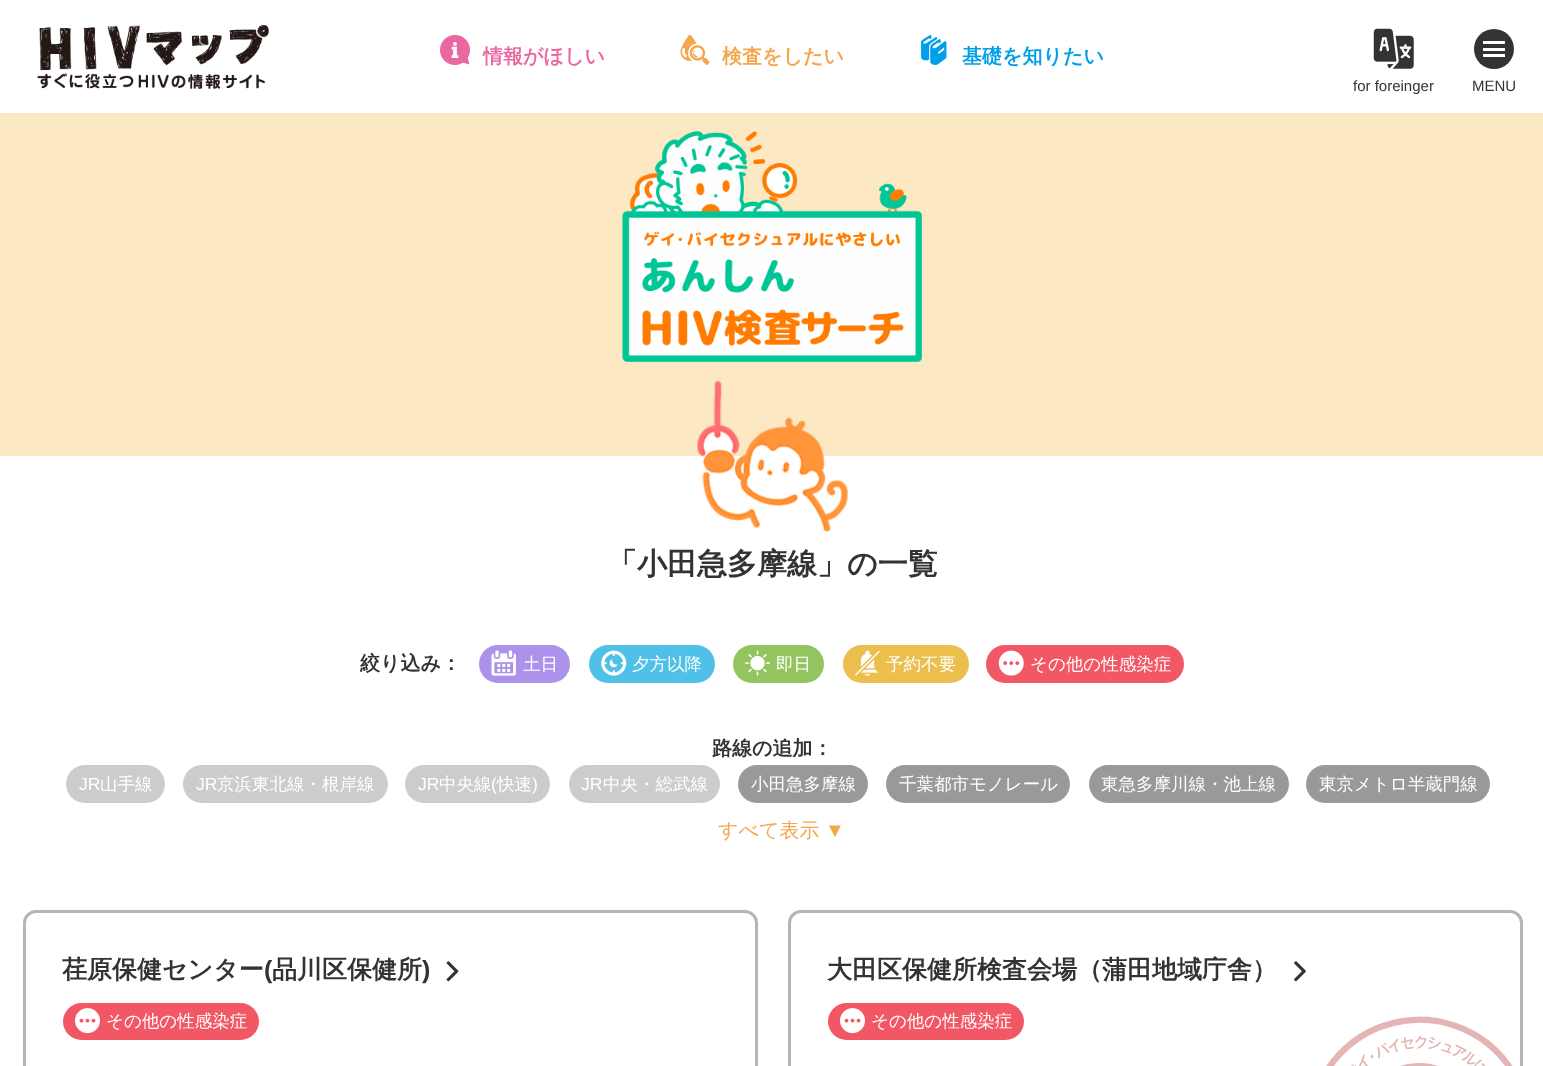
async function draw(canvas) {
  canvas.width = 1543
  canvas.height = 1066
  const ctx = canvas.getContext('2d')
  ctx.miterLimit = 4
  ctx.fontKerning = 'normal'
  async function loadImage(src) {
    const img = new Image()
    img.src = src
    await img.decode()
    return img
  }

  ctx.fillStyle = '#fff'
  ctx.fillRect(0, 0, 1543, 1066)
  ctx.drawImage(await loadImage('image0.png'), 37, 25, 232, 64)
  ctx.drawImage(await loadImage('image1.png'), 440, 35, 30, 30)
  ctx.font = 'bold 20px WenQuanYi Zen Hei'
  ctx.fillStyle = '#ea68a2'
  ctx.fillText('情報がほしい', 483, 63)
  ctx.drawImage(await loadImage('image2.png'), 680, 35, 30, 30)
  ctx.fillStyle = '#f3a74c'
  ctx.fillText('検査をしたい', 722, 63)
  ctx.drawImage(await loadImage('image3.png'), 921, 35, 26, 30)
  ctx.fillStyle = '#00a0e9'
  ctx.fillText('基礎を知りたい', 962, 63)
  ctx.drawImage(await loadImage('image4.png'), 1373, 28, 41, 41)
  ctx.font = '15px Liberation Sans'
  ctx.fillStyle = '#333'
  ctx.fillText('for foreinger', 1353, 91)
  ctx.beginPath()
  ctx.arc(1494, 49, 20, 0, 2 * Math.PI)
  ctx.fill()
  ctx.fillStyle = '#fff'
  ctx.fillRect(1483, 41, 22, 3)
  ctx.fillRect(1483, 48, 22, 3)
  ctx.fillRect(1483, 54, 22, 3)
  ctx.fillStyle = '#333'
  ctx.fillText('MENU', 1472, 91)
  ctx.fillStyle = '#fce8c2'
  ctx.fillRect(0, 113, 1543, 343)
  ctx.drawImage(await loadImage('image5.png'), 622, 131, 301, 231)
  ctx.drawImage(await loadImage('image6.png'), 697, 381, 151, 151)
  ctx.font = 'bold 30px WenQuanYi Zen Hei'
  ctx.fillStyle = '#333'
  ctx.fillText('「小田急多摩線」の一覧', 607, 574)
  ctx.font = 'bold 20px WenQuanYi Zen Hei'
  ctx.fillText('絞り込み：', 360, 670)
  ctx.fillStyle = '#ac92eb'
  ctx.beginPath()
  ctx.roundRect(479, 645, 91, 38, 19)
  ctx.fill()
  ctx.drawImage(await loadImage('image7.png'), 491, 650, 25, 26)
  ctx.font = '500 17.5px WenQuanYi Zen Hei'
  ctx.fillStyle = '#fff'
  ctx.fillText('土日', 523, 670)
  ctx.fillStyle = '#4fc1e8'
  ctx.beginPath()
  ctx.roundRect(589, 645, 126, 38, 19)
  ctx.fill()
  ctx.drawImage(await loadImage('image8.png'), 601, 650, 26, 26)
  ctx.fillStyle = '#fff'
  ctx.fillText('夕方以降', 632, 670)
  ctx.fillStyle = '#93c460'
  ctx.beginPath()
  ctx.roundRect(733, 645, 91, 38, 19)
  ctx.fill()
  ctx.drawImage(await loadImage('image9.png'), 745, 650, 25, 26)
  ctx.fillStyle = '#fff'
  ctx.fillText('即日', 776, 670)
  ctx.fillStyle = '#ebbe4d'
  ctx.beginPath()
  ctx.roundRect(843, 645, 126, 38, 19)
  ctx.fill()
  ctx.drawImage(await loadImage('image10.png'), 855, 650, 25, 26)
  ctx.fillStyle = '#fff'
  ctx.fillText('予約不要', 886, 670)
  ctx.fillStyle = '#f25766'
  ctx.beginPath()
  ctx.roundRect(986, 645, 198, 38, 19)
  ctx.fill()
  ctx.drawImage(await loadImage('image11.png'), 998, 650, 26, 26)
  ctx.fillStyle = '#fff'
  ctx.fillText('その他の性感染症', 1030, 670)
  ctx.font = 'bold 20px WenQuanYi Zen Hei'
  ctx.fillStyle = '#333'
  ctx.fillText('路線の追加：', 712, 755)
  ctx.fillStyle = '#ccc'
  ctx.beginPath()
  ctx.roundRect(66, 765, 99, 38, 19)
  ctx.fill()
  ctx.font = '17.5px Liberation Sans'
  ctx.fillStyle = '#fff'
  ctx.fillText('JR', 79, 790)
  ctx.font = '500 17.5px WenQuanYi Zen Hei'
  ctx.fillText('山手線', 100, 790)
  ctx.fillStyle = '#ccc'
  ctx.beginPath()
  ctx.roundRect(183, 765, 205, 38, 19)
  ctx.fill()
  ctx.font = '17.5px Liberation Sans'
  ctx.fillStyle = '#fff'
  ctx.fillText('JR', 196, 790)
  ctx.font = '500 17.5px WenQuanYi Zen Hei'
  ctx.fillText('京浜東北線・根岸線', 217, 790)
  ctx.fillStyle = '#ccc'
  ctx.beginPath()
  ctx.roundRect(405, 765, 145, 38, 19)
  ctx.fill()
  ctx.font = '17.5px Liberation Sans'
  ctx.fillStyle = '#fff'
  ctx.fillText('JR', 418, 790)
  ctx.font = '500 17.5px WenQuanYi Zen Hei'
  ctx.fillText('中央線', 439, 790)
  ctx.font = '17.5px Liberation Sans'
  ctx.fillText('(', 491, 790)
  ctx.font = '500 17.5px WenQuanYi Zen Hei'
  ctx.fillText('快速', 497, 790)
  ctx.font = '17.5px Liberation Sans'
  ctx.fillText(')', 532, 790)
  ctx.fillStyle = '#ccc'
  ctx.beginPath()
  ctx.roundRect(569, 765, 151, 38, 19)
  ctx.fill()
  ctx.fillStyle = '#fff'
  ctx.fillText('JR', 581, 790)
  ctx.font = '500 17.5px WenQuanYi Zen Hei'
  ctx.fillText('中央・総武線', 603, 790)
  ctx.fillStyle = '#999'
  ctx.beginPath()
  ctx.roundRect(738, 765, 130, 38, 19)
  ctx.fill()
  ctx.fillStyle = '#fff'
  ctx.fillText('小田急多摩線', 751, 790)
  ctx.fillStyle = '#999'
  ctx.beginPath()
  ctx.roundRect(886, 765, 184, 38, 19)
  ctx.fill()
  ctx.fillStyle = '#fff'
  ctx.fillText('千葉都市モノレール', 899, 790)
  ctx.fillStyle = '#999'
  ctx.beginPath()
  ctx.roundRect(1089, 765, 200, 38, 19)
  ctx.fill()
  ctx.fillStyle = '#fff'
  ctx.fillText('東急多摩川線・池上線', 1101, 790)
  ctx.fillStyle = '#999'
  ctx.beginPath()
  ctx.roundRect(1306, 765, 184, 38, 19)
  ctx.fill()
  ctx.fillStyle = '#fff'
  ctx.fillText('東京メトロ半蔵門線', 1319, 790)
  ctx.font = '500 20px WenQuanYi Zen Hei'
  ctx.fillStyle = '#f3a74c'
  ctx.fillText('すべて表示', 718, 837)
  ctx.font = '20px Liberation Sans'
  ctx.fillText('▼', 825, 837)
  ctx.beginPath()
  ctx.roundRect(24.5, 911.5, 732, 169, 11.5)
  ctx.strokeStyle = '#b5b5b5'
  ctx.lineWidth = 3
  ctx.stroke()
  ctx.font = 'bold 25px WenQuanYi Zen Hei'
  ctx.fillStyle = '#333'
  ctx.fillText('荏原保健センター', 62, 978)
  ctx.font = 'bold 25px Liberation Sans'
  ctx.fillText('(', 264, 978)
  ctx.font = 'bold 25px WenQuanYi Zen Hei'
  ctx.fillText('品川区保健所', 272, 978)
  ctx.font = 'bold 25px Liberation Sans'
  ctx.fillText(')', 422, 978)
  ctx.drawImage(await loadImage('image12.png'), 446, 961, 13, 21)
  ctx.fillStyle = '#f25766'
  ctx.beginPath()
  ctx.roundRect(63, 1003, 196, 37, 18.5)
  ctx.fill()
  ctx.drawImage(await loadImage('image13.png'), 75, 1008, 25, 26)
  ctx.font = '500 17.5px WenQuanYi Zen Hei'
  ctx.fillStyle = '#fff'
  ctx.fillText('その他の性感染症', 106, 1027)
  ctx.drawImage(await loadImage('image14.png'), 1326, 1016, 187, 50)
  ctx.beginPath()
  ctx.roundRect(789.5, 911.5, 732, 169, 11.5)
  ctx.stroke()
  ctx.font = 'bold 25px WenQuanYi Zen Hei'
  ctx.fillStyle = '#333'
  ctx.fillText('大田区保健所検査会場（蒲田地域庁舎）', 827, 978)
  ctx.drawImage(await loadImage('image15.png'), 1294, 961, 12, 21)
  ctx.fillStyle = '#f25766'
  ctx.beginPath()
  ctx.roundRect(828, 1003, 196, 37, 18.5)
  ctx.fill()
  ctx.drawImage(await loadImage('image13.png'), 840, 1008, 25, 26)
  ctx.font = '500 17.5px WenQuanYi Zen Hei'
  ctx.fillStyle = '#fff'
  ctx.fillText('その他の性感染症', 871, 1027)
}

draw(document.querySelector('canvas'))
